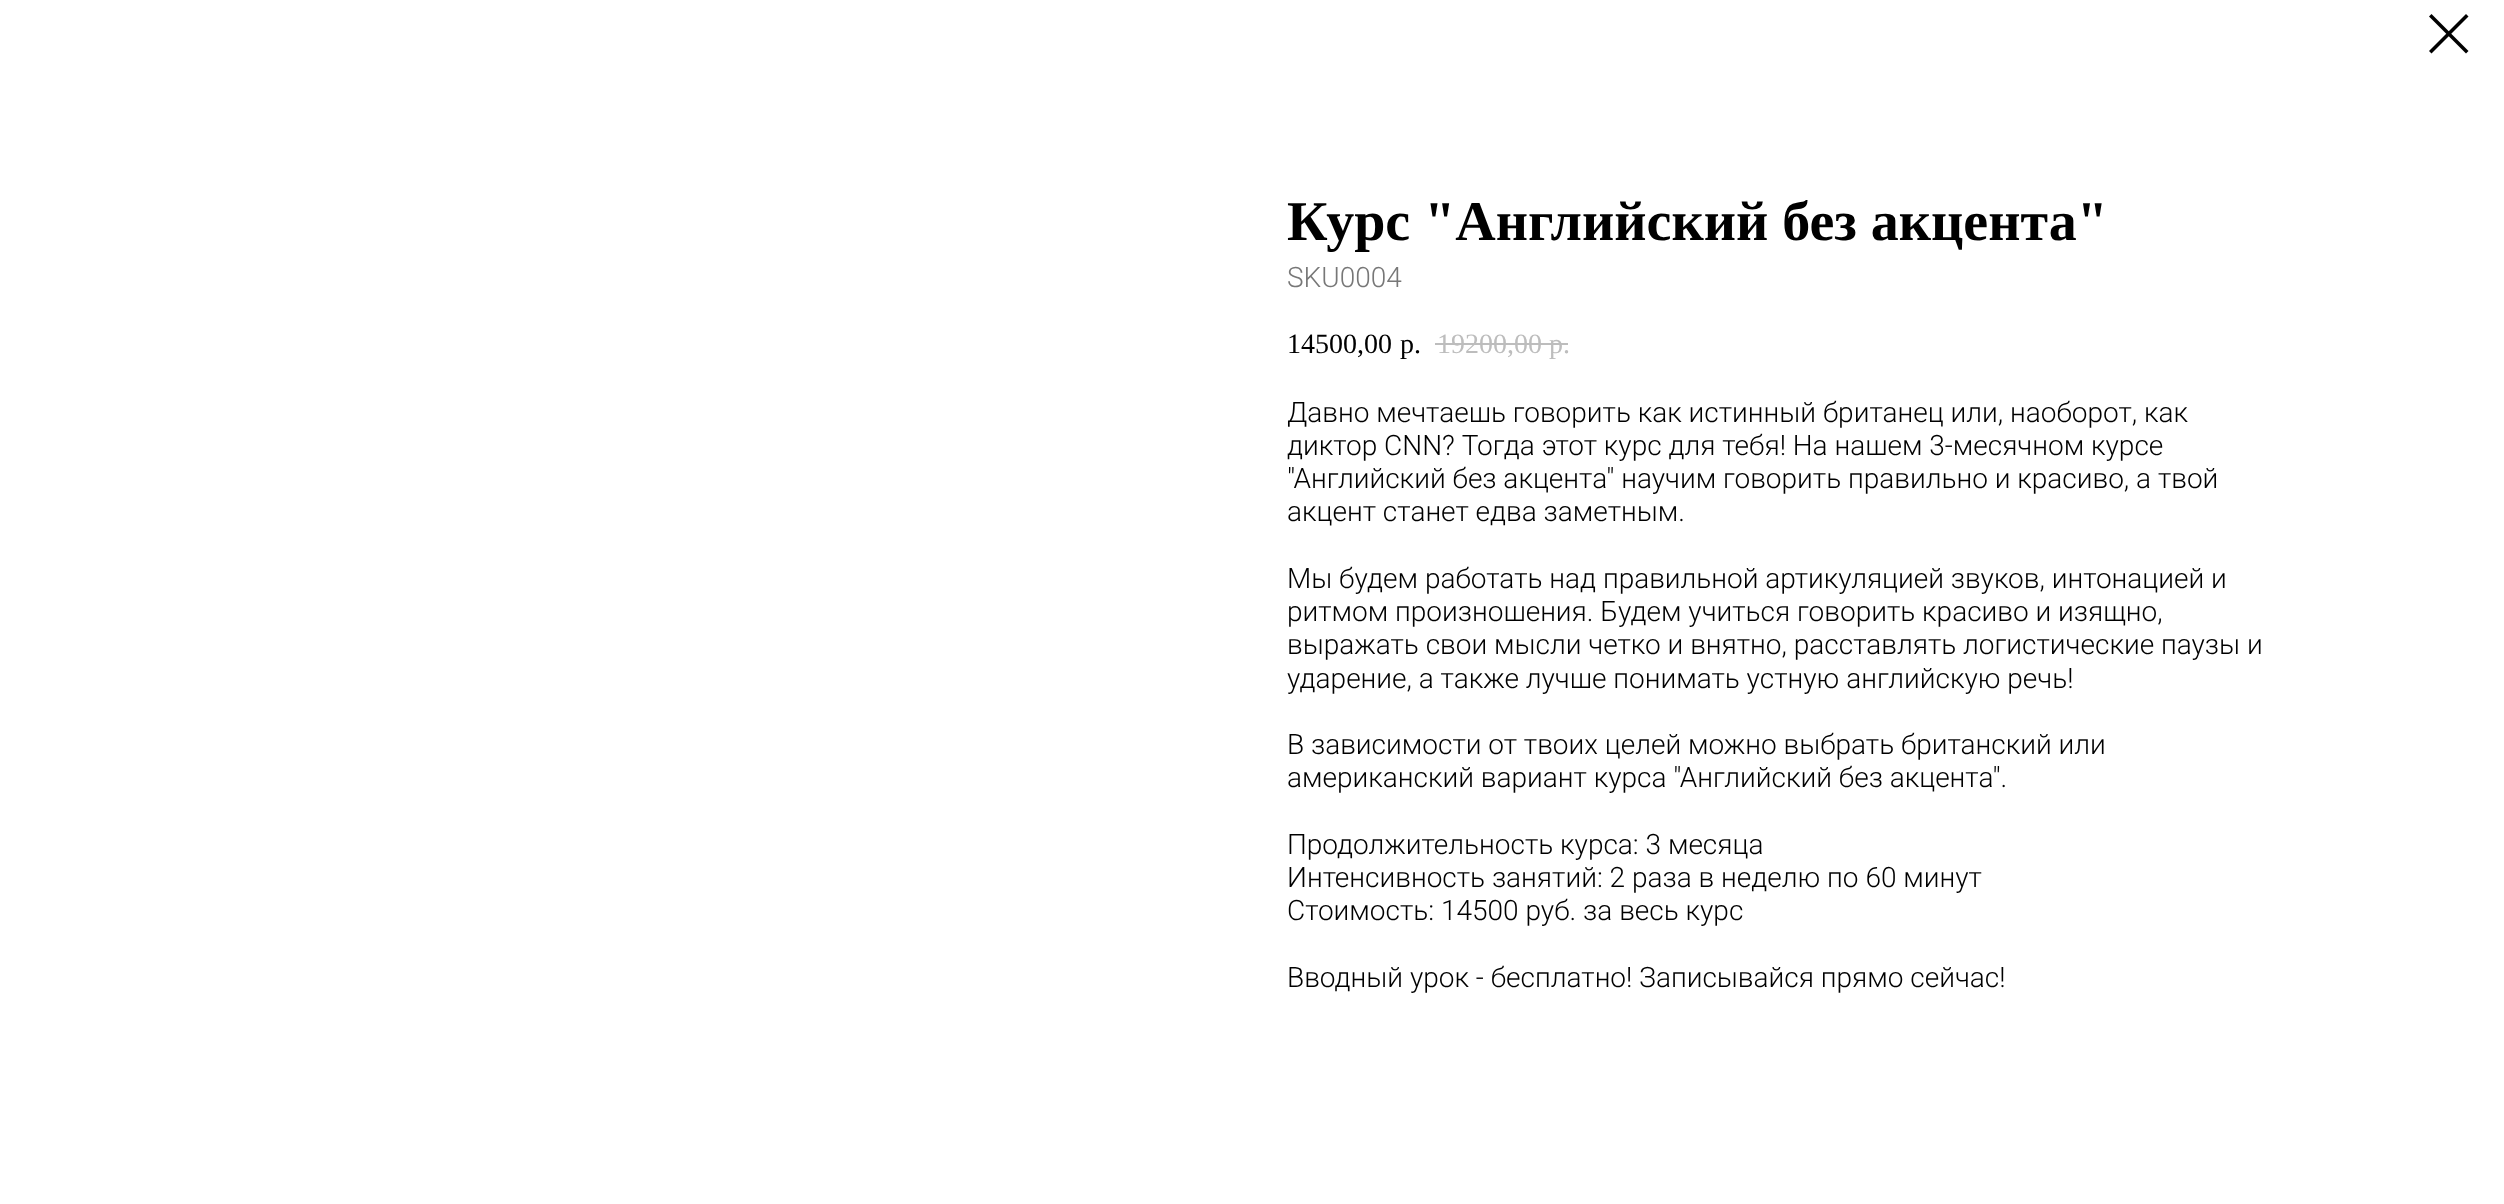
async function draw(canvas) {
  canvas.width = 2504
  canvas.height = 1204
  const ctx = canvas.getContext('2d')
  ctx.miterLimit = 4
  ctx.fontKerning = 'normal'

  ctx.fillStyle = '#fff'
  ctx.fillRect(0, 0, 2504, 1204)
  ctx.fillStyle = '#000'
  ctx.beginPath()
  ctx.moveTo(2429, 16.5)
  ctx.lineTo(2431.5, 14)
  ctx.lineTo(2468.5, 51)
  ctx.lineTo(2466, 53.5)
  ctx.closePath()
  ctx.fill('evenodd')
  ctx.beginPath()
  ctx.moveTo(2466, 14)
  ctx.lineTo(2468.5, 16.5)
  ctx.lineTo(2431.5, 53.5)
  ctx.lineTo(2429, 51)
  ctx.closePath()
  ctx.fill('evenodd')
  ctx.font = 'bold 56px Liberation Serif'
  ctx.fillText('Курс "Английский без акцента"', 1287, 240)
  ctx.font = '300 28px Roboto'
  ctx.fillStyle = '#777'
  ctx.fillText('SKU0004', 1287, 287)
  ctx.font = '28px Liberation Serif'
  ctx.fillStyle = '#000'
  ctx.fillText('14500,00', 1287, 353)
  ctx.fillText('р.', 1400, 353)
  ctx.fillStyle = '#bdbdbd'
  ctx.fillText('19200,00', 1437, 353)
  ctx.fillText('р.', 1549, 353)
  ctx.fillRect(1435, 343, 133, 2)
  ctx.font = '300 28px Roboto'
  ctx.fillStyle = '#000'
  ctx.fillText('Давно мечтаешь говорить как истинный британец или, наоборот, как', 1287, 422)
  ctx.fillText('диктор CNN? Тогда этот курс для тебя! На нашем 3-месячном курсе', 1287, 455)
  ctx.fillText('"Английский без акцента" научим говорить правильно и красиво, а твой', 1287, 488)
  ctx.fillText('акцент станет едва заметным.', 1287, 521)
  ctx.fillText('Мы будем работать над правильной артикуляцией звуков, интонацией и', 1287, 588)
  ctx.fillText('ритмом произношения. Будем учиться говорить красиво и изящно,', 1287, 621)
  ctx.fillText('выражать свои мысли четко и внятно, расставлять логистические паузы и', 1287, 654)
  ctx.fillText('ударение, а также лучше понимать устную английскую речь!', 1287, 688)
  ctx.fillText('В зависимости от твоих целей можно выбрать британский или', 1287, 754)
  ctx.fillText('американский вариант курса "Английский без акцента".', 1287, 787)
  ctx.fillText('Продолжительность курса: 3 месяца', 1287, 854)
  ctx.fillText('Интенсивность занятий: 2 раза в неделю по 60 минут', 1287, 887)
  ctx.fillText('Стоимость: 14500 руб. за весь курс', 1287, 920)
  ctx.fillText('Вводный урок - бесплатно! Записывайся прямо сейчас!', 1287, 987)
}

draw(document.querySelector('canvas'))
